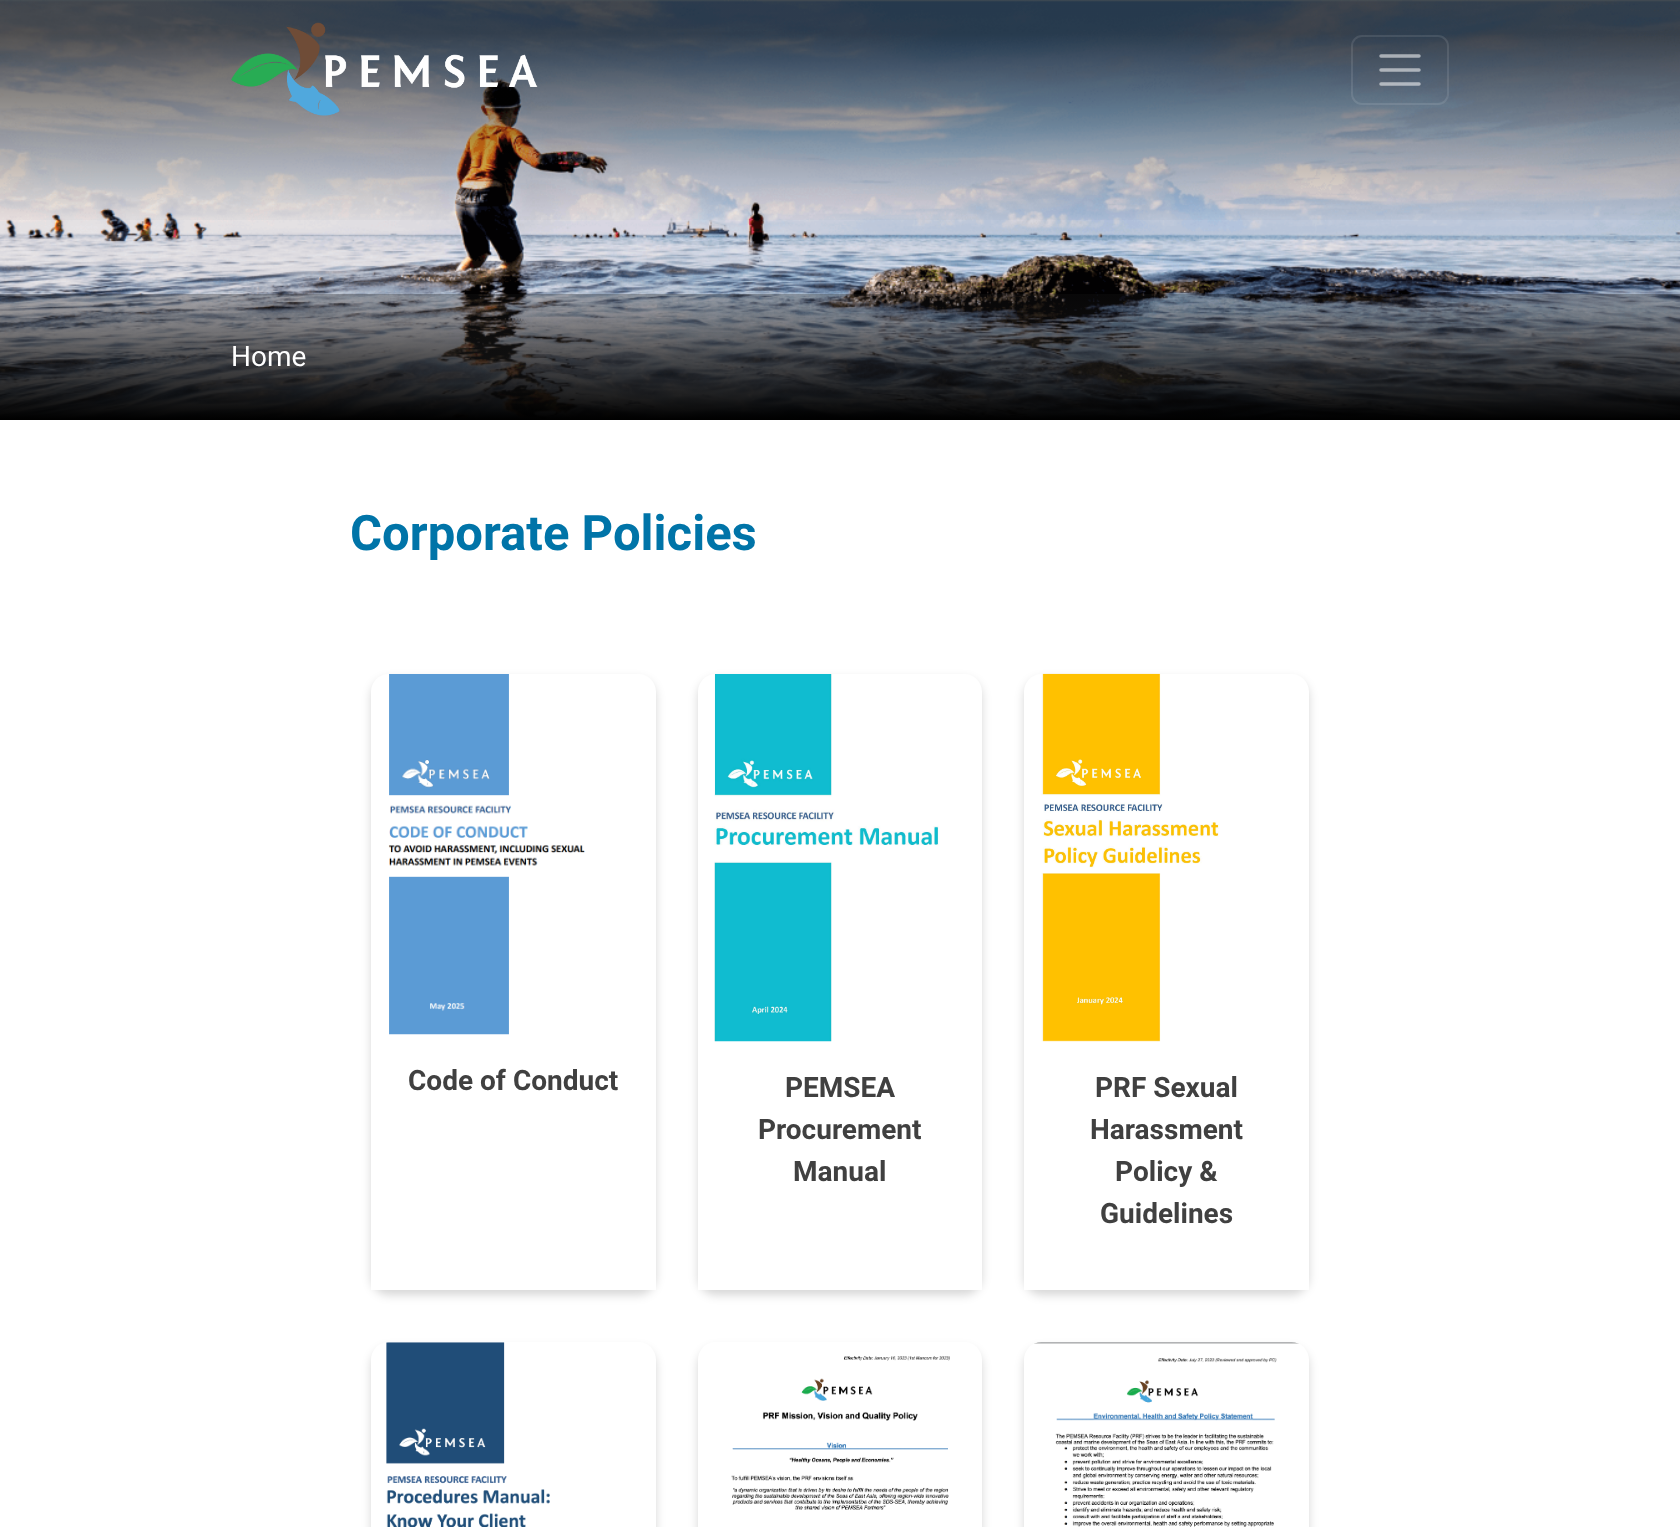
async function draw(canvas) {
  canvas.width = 1680
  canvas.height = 1527
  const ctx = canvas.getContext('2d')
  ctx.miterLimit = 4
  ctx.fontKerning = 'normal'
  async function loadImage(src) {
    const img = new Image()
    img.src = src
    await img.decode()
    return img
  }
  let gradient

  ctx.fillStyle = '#fff'
  ctx.fillRect(0, 0, 1680, 1527)
  ctx.drawImage(await loadImage('image1.png'), 0, 0, 1680, 419)
  gradient = ctx.createLinearGradient(840, 0, 840, 420)
  gradient.addColorStop(0.08, '#000000a6')
  gradient.addColorStop(0.54, '#00000000')
  gradient.addColorStop(1, '#ffffff00')
  gradient.addColorStop(1, '#fff')
  ctx.fillStyle = gradient
  ctx.fillRect(0, 0, 1680, 220)
  ctx.drawImage(await loadImage('image0.png'), 231, 22, 307, 94)
  ctx.beginPath()
  ctx.roundRect(1352, 36, 96, 68, 10)
  ctx.strokeStyle = '#ffffff1a'
  ctx.lineWidth = 2
  ctx.stroke()
  ctx.beginPath()
  ctx.moveTo(1381, 56)
  ctx.lineTo(1419, 56)
  ctx.moveTo(1381, 70)
  ctx.lineTo(1419, 70)
  ctx.moveTo(1381, 84)
  ctx.lineTo(1419, 84)
  ctx.strokeStyle = '#ffffff8c'
  ctx.lineWidth = 3.5
  ctx.lineCap = 'round'
  ctx.stroke()
  gradient = ctx.createLinearGradient(840, 294, 840, 420)
  gradient.addColorStop(0.05, '#1818184d')
  gradient.addColorStop(0.5, '#151515b3')
  gradient.addColorStop(1, '#000')
  ctx.fillStyle = gradient
  ctx.fillRect(0, 294, 1680, 126)
  ctx.font = '28px Roboto'
  ctx.fillStyle = '#fff'
  ctx.fillText('Home', 231, 366)
  ctx.font = 'bold 49px Roboto'
  ctx.fillStyle = '#0074a8'
  ctx.fillText('Corporate Policies', 350, 550)
  ctx.save()
  ctx.beginPath()
  ctx.moveTo(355, 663)
  ctx.lineTo(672, 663)
  ctx.lineTo(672, 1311)
  ctx.lineTo(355, 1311)
  ctx.closePath()
  ctx.moveTo(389, 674)
  ctx.lineTo(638, 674)
  ctx.bezierCurveTo(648, 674, 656, 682, 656, 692)
  ctx.lineTo(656, 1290)
  ctx.lineTo(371, 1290)
  ctx.lineTo(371, 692)
  ctx.bezierCurveTo(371, 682, 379, 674, 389, 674)
  ctx.closePath()
  ctx.clip('evenodd')
  ctx.fillStyle = '#00000029'
  ctx.filter = 'blur(5px)'
  ctx.beginPath()
  ctx.roundRect(371, 679, 285, 616, 18)
  ctx.fill()
  ctx.filter = 'none'
  ctx.restore()
  ctx.drawImage(await loadImage('image2.png'), 388, 674, 197, 361)
  ctx.font = 'bold 28px Roboto'
  ctx.fillStyle = '#404040'
  ctx.fillText('Code of Conduct', 408, 1090)
  ctx.save()
  ctx.beginPath()
  ctx.moveTo(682, 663)
  ctx.lineTo(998, 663)
  ctx.lineTo(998, 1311)
  ctx.lineTo(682, 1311)
  ctx.closePath()
  ctx.moveTo(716, 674)
  ctx.lineTo(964, 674)
  ctx.bezierCurveTo(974, 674, 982, 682, 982, 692)
  ctx.lineTo(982, 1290)
  ctx.lineTo(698, 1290)
  ctx.lineTo(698, 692)
  ctx.bezierCurveTo(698, 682, 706, 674, 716, 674)
  ctx.closePath()
  ctx.clip('evenodd')
  ctx.fillStyle = '#00000029'
  ctx.filter = 'blur(5px)'
  ctx.beginPath()
  ctx.roundRect(698, 679, 284, 616, 18)
  ctx.fill()
  ctx.filter = 'none'
  ctx.restore()
  ctx.drawImage(await loadImage('image3.png'), 714, 674, 225, 368)
  ctx.fillText('PEMSEA', 785, 1097)
  ctx.fillText('Procurement', 758, 1139)
  ctx.fillText('Manual', 793, 1181)
  ctx.save()
  ctx.beginPath()
  ctx.moveTo(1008, 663)
  ctx.lineTo(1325, 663)
  ctx.lineTo(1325, 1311)
  ctx.lineTo(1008, 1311)
  ctx.closePath()
  ctx.moveTo(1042, 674)
  ctx.lineTo(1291, 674)
  ctx.bezierCurveTo(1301, 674, 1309, 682, 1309, 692)
  ctx.lineTo(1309, 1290)
  ctx.lineTo(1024, 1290)
  ctx.lineTo(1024, 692)
  ctx.bezierCurveTo(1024, 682, 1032, 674, 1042, 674)
  ctx.closePath()
  ctx.clip('evenodd')
  ctx.fillStyle = '#00000029'
  ctx.filter = 'blur(5px)'
  ctx.beginPath()
  ctx.roundRect(1024, 679, 285, 616, 18)
  ctx.fill()
  ctx.filter = 'none'
  ctx.restore()
  ctx.drawImage(await loadImage('image4.png'), 1041, 673, 178, 369)
  ctx.fillText('PRF Sexual', 1095, 1097)
  ctx.fillText('Harassment', 1090, 1139)
  ctx.fillText('Policy &', 1115, 1181)
  ctx.fillText('Guidelines', 1100, 1223)
  ctx.save()
  ctx.beginPath()
  ctx.moveTo(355, 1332)
  ctx.lineTo(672, 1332)
  ctx.lineTo(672, 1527)
  ctx.lineTo(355, 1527)
  ctx.closePath()
  ctx.moveTo(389, 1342)
  ctx.lineTo(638, 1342)
  ctx.bezierCurveTo(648, 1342, 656, 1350, 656, 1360)
  ctx.lineTo(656, 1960)
  ctx.lineTo(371, 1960)
  ctx.lineTo(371, 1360)
  ctx.bezierCurveTo(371, 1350, 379, 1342, 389, 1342)
  ctx.closePath()
  ctx.clip('evenodd')
  ctx.fillStyle = '#00000029'
  ctx.filter = 'blur(5px)'
  ctx.beginPath()
  ctx.roundRect(371, 1348, 285, 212, 18)
  ctx.fill()
  ctx.filter = 'none'
  ctx.restore()
  ctx.drawImage(await loadImage('image5.png'), 386, 1342, 164, 185)
  ctx.save()
  ctx.beginPath()
  ctx.moveTo(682, 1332)
  ctx.lineTo(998, 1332)
  ctx.lineTo(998, 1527)
  ctx.lineTo(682, 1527)
  ctx.closePath()
  ctx.moveTo(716, 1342)
  ctx.lineTo(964, 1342)
  ctx.bezierCurveTo(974, 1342, 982, 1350, 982, 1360)
  ctx.lineTo(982, 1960)
  ctx.lineTo(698, 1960)
  ctx.lineTo(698, 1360)
  ctx.bezierCurveTo(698, 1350, 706, 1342, 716, 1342)
  ctx.closePath()
  ctx.clip('evenodd')
  ctx.fillStyle = '#00000029'
  ctx.filter = 'blur(5px)'
  ctx.beginPath()
  ctx.roundRect(698, 1348, 284, 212, 18)
  ctx.fill()
  ctx.filter = 'none'
  ctx.restore()
  ctx.drawImage(await loadImage('image6.png'), 731, 1356, 219, 154)
  ctx.save()
  ctx.beginPath()
  ctx.moveTo(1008, 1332)
  ctx.lineTo(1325, 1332)
  ctx.lineTo(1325, 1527)
  ctx.lineTo(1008, 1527)
  ctx.closePath()
  ctx.moveTo(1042, 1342)
  ctx.lineTo(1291, 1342)
  ctx.bezierCurveTo(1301, 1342, 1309, 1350, 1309, 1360)
  ctx.lineTo(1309, 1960)
  ctx.lineTo(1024, 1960)
  ctx.lineTo(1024, 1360)
  ctx.bezierCurveTo(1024, 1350, 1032, 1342, 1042, 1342)
  ctx.closePath()
  ctx.clip('evenodd')
  ctx.fillStyle = '#00000029'
  ctx.filter = 'blur(5px)'
  ctx.beginPath()
  ctx.roundRect(1024, 1348, 285, 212, 18)
  ctx.fill()
  ctx.filter = 'none'
  ctx.restore()
  ctx.drawImage(await loadImage('image7.png'), 1034, 1342, 265, 185)
}

draw(document.querySelector('canvas'))
